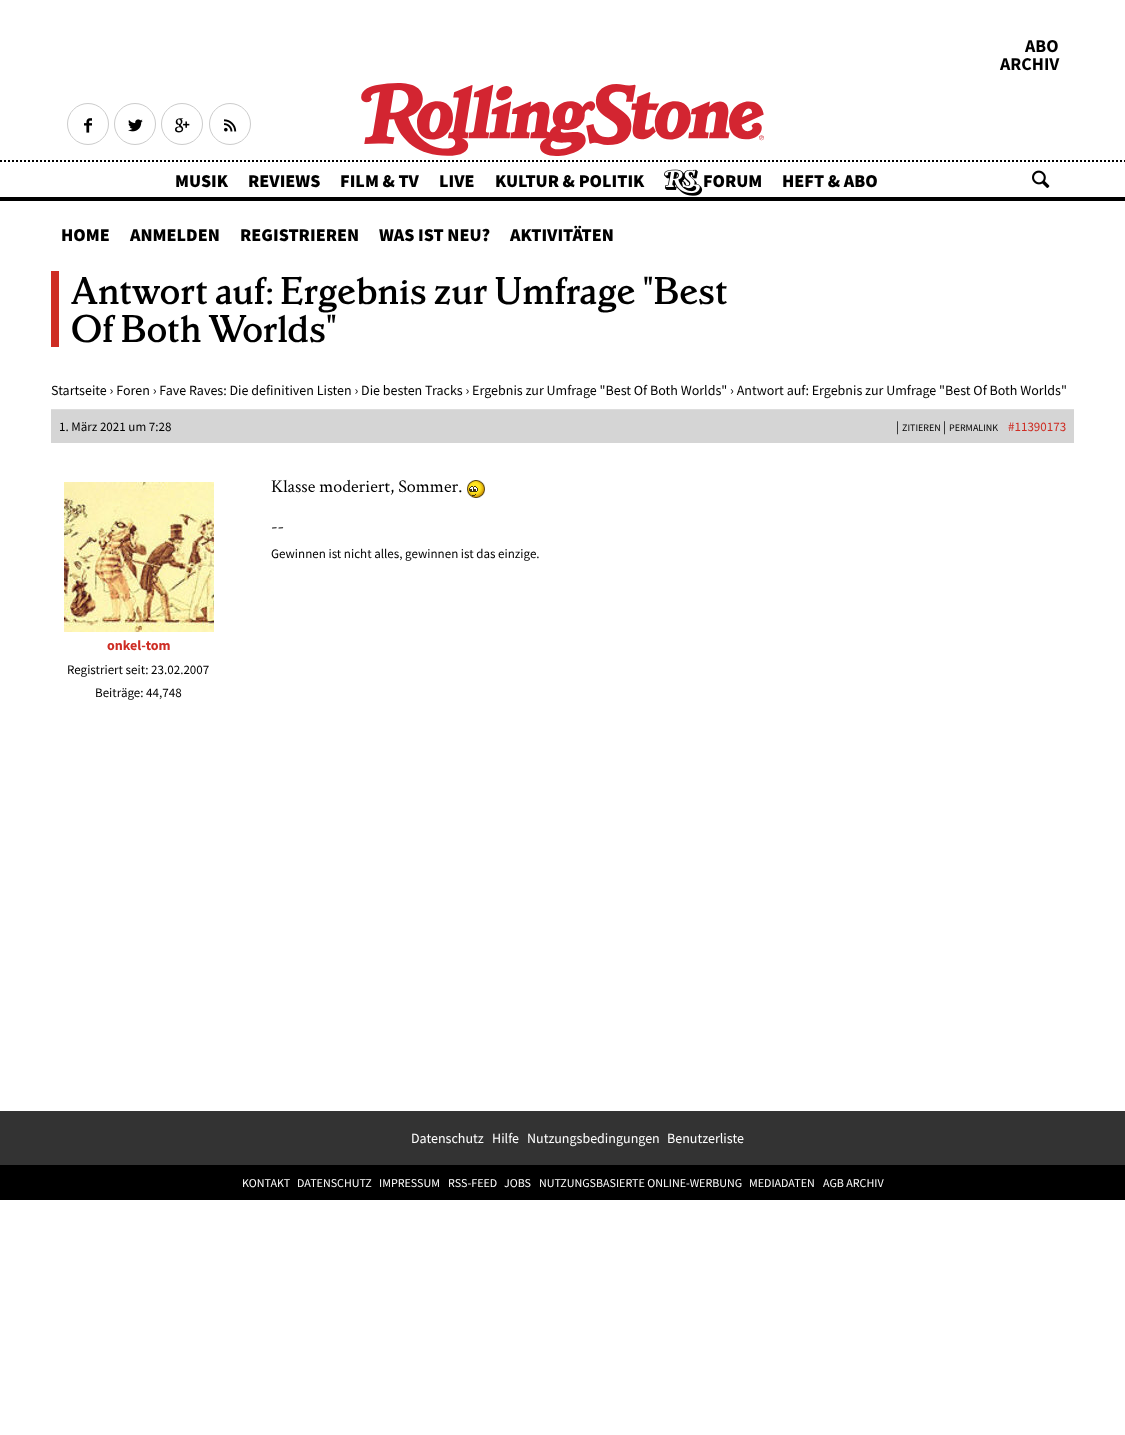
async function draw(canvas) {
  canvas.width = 1125
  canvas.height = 1435
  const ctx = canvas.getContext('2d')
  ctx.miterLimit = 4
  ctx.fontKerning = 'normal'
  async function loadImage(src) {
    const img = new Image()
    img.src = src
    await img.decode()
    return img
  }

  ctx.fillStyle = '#fff'
  ctx.fillRect(0, 0, 1125, 1435)
  ctx.font = 'bold 18px Source Sans Pro'
  ctx.fillStyle = '#000'
  ctx.fillText('ABO', 1025, 52)
  ctx.fillText('ARCHIV', 1000, 70)
  ctx.beginPath()
  ctx.arc(88, 124, 20.5, 0, 2 * Math.PI)
  ctx.strokeStyle = '#ccc'
  ctx.stroke()
  ctx.drawImage(await loadImage('image0.png'), 84, 118, 8, 15)
  ctx.beginPath()
  ctx.arc(135, 124, 20.5, 0, 2 * Math.PI)
  ctx.stroke()
  ctx.drawImage(await loadImage('image1.png'), 128, 119, 15, 13)
  ctx.beginPath()
  ctx.arc(182, 124, 20.5, 0, 2 * Math.PI)
  ctx.stroke()
  ctx.drawImage(await loadImage('image2.png'), 175, 118, 15, 15)
  ctx.beginPath()
  ctx.arc(230, 124, 20.5, 0, 2 * Math.PI)
  ctx.stroke()
  ctx.drawImage(await loadImage('image3.png'), 224, 119, 13, 13)
  ctx.beginPath()
  ctx.moveTo(0, 161)
  ctx.lineTo(1125, 161)
  ctx.strokeStyle = '#000'
  ctx.lineWidth = 2
  ctx.setLineDash([2, 2])
  ctx.stroke()
  ctx.fillRect(0, 197, 1125, 4)
  ctx.drawImage(await loadImage('image4.png'), 361, 83, 403, 73)
  ctx.font = '900 18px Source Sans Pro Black'
  ctx.fillText('MUSIK', 175, 187)
  ctx.fillText('REVIEWS', 248, 187)
  ctx.fillText('FILM & TV', 340, 187)
  ctx.fillText('LIVE', 439, 187)
  ctx.fillText('KULTUR & POLITIK', 495, 187)
  ctx.drawImage(await loadImage('image5.png'), 664, 169, 39, 27)
  ctx.fillText('FORUM', 703, 187)
  ctx.fillText('HEFT & ABO', 782, 187)
  ctx.drawImage(await loadImage('image6.png'), 1032, 170, 18, 18)
  ctx.fillText('HOME', 61, 241)
  ctx.fillText('ANMELDEN', 130, 241)
  ctx.fillText('REGISTRIEREN', 240, 241)
  ctx.fillText('WAS IST NEU?', 379, 241)
  ctx.fillText('AKTIVITÄTEN', 510, 241)
  ctx.fillStyle = '#ce2d24'
  ctx.fillRect(51, 271, 8, 76)
  ctx.font = '500 36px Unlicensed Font'
  ctx.fillStyle = '#000'
  ctx.fillText('Antwort auf: Ergebnis zur Umfrage "Best', 71, 304)
  ctx.fillText('Of Both Worlds"', 71, 342)
  ctx.font = '14px Source Sans Pro'
  ctx.fillText('Startseite › Foren › Fave Raves: Die definitiven Listen › Die besten Tracks › Ergebnis zur Umfrage "Best Of Both Worlds" › Antwort auf: Ergebnis zur Umfrage "Best Of Both Worlds"', 51, 395)
  ctx.fillStyle = '#d5d5d5'
  ctx.fillRect(51, 410, 1023, 33)
  ctx.fillStyle = '#ddd'
  ctx.fillRect(51, 409, 1023, 1)
  ctx.font = '13px Source Sans Pro'
  ctx.fillStyle = '#000'
  ctx.fillText('1. März 2021 um 7:28', 59, 431)
  ctx.fillText('|', 896, 431)
  ctx.font = '10px Source Sans Pro'
  ctx.fillText('ZITIEREN', 902, 431)
  ctx.font = '13px Source Sans Pro'
  ctx.fillText('|', 943, 431)
  ctx.font = '10px Source Sans Pro'
  ctx.fillText('PERMALINK', 949, 431)
  ctx.font = '13px Source Sans Pro'
  ctx.fillStyle = '#ce2d24'
  ctx.fillText('#11390173', 1008, 431)
  ctx.font = '18px Crimson Text'
  ctx.fillStyle = '#000'
  ctx.fillText('Klasse moderiert, Sommer.', 271, 492)
  ctx.drawImage(await loadImage('image7.png'), 467, 480, 18, 18)
  ctx.fillText('--', 271, 532)
  ctx.font = '13px Source Sans Pro'
  ctx.fillText('Gewinnen ist nicht alles, gewinnen ist das einzige.', 271, 558)
  ctx.drawImage(await loadImage('image8.png'), 64, 482, 150, 150)
  ctx.font = 'bold 14px Source Sans Pro'
  ctx.fillStyle = '#ce2d24'
  ctx.fillText('onkel-tom', 107, 650)
  ctx.font = '13px Source Sans Pro'
  ctx.fillStyle = '#000'
  ctx.fillText('Registriert seit: 23.02.2007', 67, 674)
  ctx.fillText('Beiträge: 44,748', 95, 697)
  ctx.fillRect(0, 1165, 1125, 35)
  ctx.fillStyle = '#333'
  ctx.fillRect(0, 1111, 1125, 54)
  ctx.font = '14px Source Sans Pro'
  ctx.fillStyle = '#fff'
  ctx.fillText('Datenschutz', 411, 1143)
  ctx.fillText('Hilfe', 492, 1143)
  ctx.fillText('Nutzungsbedingungen', 527, 1143)
  ctx.fillText('Benutzerliste', 667, 1143)
  ctx.font = '12px Source Sans Pro'
  ctx.fillText('KONTAKT', 242, 1187)
  ctx.fillText('DATENSCHUTZ', 297, 1187)
  ctx.fillText('IMPRESSUM', 379, 1187)
  ctx.fillText('RSS-FEED', 448, 1187)
  ctx.fillText('JOBS', 504, 1187)
  ctx.fillText('NUTZUNGSBASIERTE ONLINE-WERBUNG', 539, 1187)
  ctx.fillText('MEDIADATEN', 749, 1187)
  ctx.fillText('AGB ARCHIV', 823, 1187)
}

draw(document.querySelector('canvas'))
